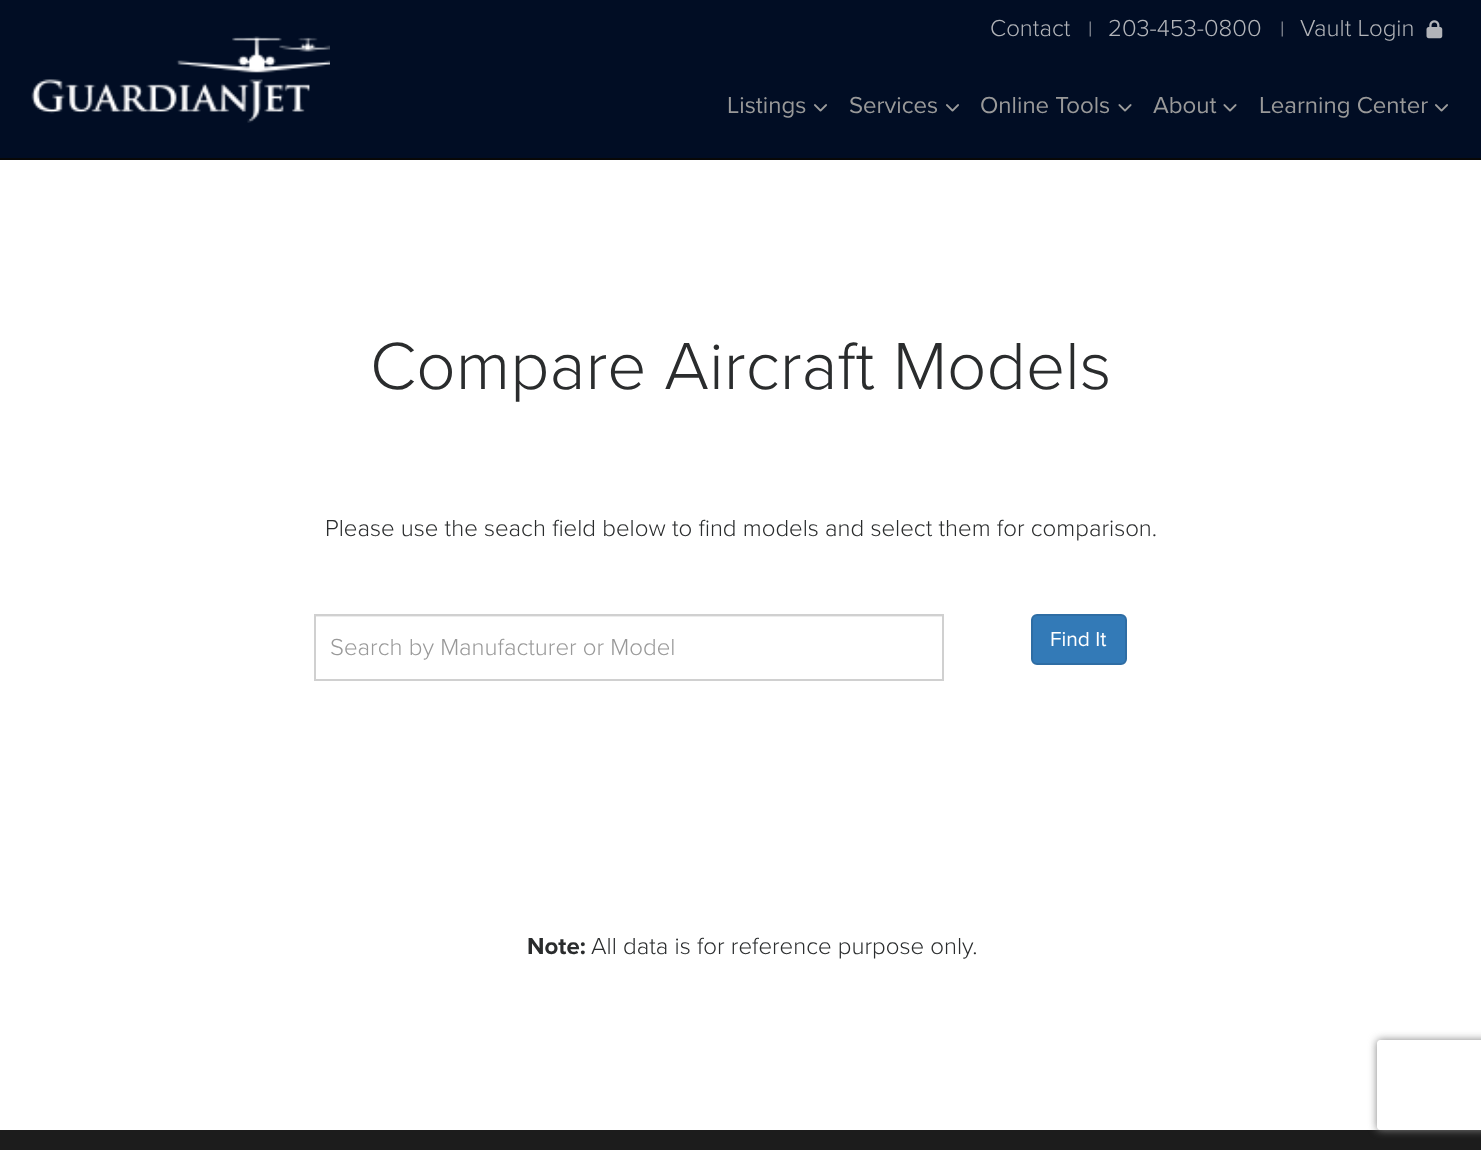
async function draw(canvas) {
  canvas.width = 1481
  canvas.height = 1150
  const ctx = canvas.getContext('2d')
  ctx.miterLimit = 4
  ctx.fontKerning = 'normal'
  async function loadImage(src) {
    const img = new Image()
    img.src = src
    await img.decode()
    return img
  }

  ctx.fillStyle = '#fff'
  ctx.fillRect(0, 0, 1481, 1150)
  ctx.fillStyle = '#010d24'
  ctx.fillRect(0, 0, 1481, 158)
  ctx.fillStyle = '#080808'
  ctx.fillRect(0, 158, 1481, 2)
  ctx.font = '300 24px Proxima Nova'
  ctx.fillStyle = '#b2b4b9'
  ctx.fillText('Contact', 990, 36)
  ctx.font = '300 21px Proxima Nova'
  ctx.fillText('|', 1088, 36)
  ctx.font = '300 24px Proxima Nova'
  ctx.fillText('203-453-0800', 1108, 36)
  ctx.font = '300 21px Proxima Nova'
  ctx.fillText('|', 1280, 36)
  ctx.font = '300 24px Proxima Nova'
  ctx.fillText('Vault Login', 1300, 36)
  ctx.drawImage(await loadImage('image0.png'), 1426, 20, 17, 19)
  ctx.drawImage(await loadImage('image1.png'), 31, 36, 299, 87)
  ctx.font = '24px Proxima Nova'
  ctx.fillStyle = '#999'
  ctx.fillText('Listings', 727, 113)
  ctx.drawImage(await loadImage('image2.png'), 814, 104, 13, 8)
  ctx.fillText('Services', 849, 113)
  ctx.drawImage(await loadImage('image2.png'), 946, 104, 13, 8)
  ctx.fillText('Online Tools', 980, 113)
  ctx.drawImage(await loadImage('image3.png'), 1118, 104, 14, 8)
  ctx.fillText('About', 1153, 113)
  ctx.drawImage(await loadImage('image3.png'), 1223, 104, 14, 8)
  ctx.fillText('Learning Center', 1259, 113)
  ctx.drawImage(await loadImage('image2.png'), 1435, 104, 13, 8)
  ctx.font = '300 69px Proxima Nova'
  ctx.fillStyle = '#2a2c2d'
  ctx.fillText('Compare Aircraft Models', 370, 389)
  ctx.font = '300 24px Proxima Nova'
  ctx.fillText('Please use the seach field below to find models and select them for comparison.', 325, 536)
  ctx.fillStyle = '#ececec'
  ctx.fillRect(315, 616, 627, 1)
  ctx.strokeStyle = '#d0d0d0'
  ctx.lineWidth = 2
  ctx.strokeRect(315, 615, 628, 65)
  ctx.fillStyle = '#999'
  ctx.fillText('Search by Manufacturer or Model', 330, 655)
  ctx.fillStyle = '#337ab7'
  ctx.beginPath()
  ctx.roundRect(1032, 615, 94, 49, 5)
  ctx.fill()
  ctx.strokeStyle = '#2e6da4'
  ctx.stroke()
  ctx.font = '21px Proxima Nova'
  ctx.fillStyle = '#fff'
  ctx.fillText('Find It', 1050, 646)
  ctx.font = 'bold 24px Proxima Nova'
  ctx.fillStyle = '#2a2c2d'
  ctx.fillText('Note:', 527, 954)
  ctx.font = '300 24px Proxima Nova'
  ctx.fillText('All data is for reference purpose only.', 591, 954)
  ctx.fillStyle = '#1c1c1c'
  ctx.fillRect(0, 1130, 1481, 20)
  ctx.save()
  ctx.beginPath()
  ctx.moveTo(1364, 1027)
  ctx.lineTo(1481, 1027)
  ctx.lineTo(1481, 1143)
  ctx.lineTo(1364, 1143)
  ctx.closePath()
  ctx.moveTo(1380, 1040)
  ctx.lineTo(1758, 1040)
  ctx.bezierCurveTo(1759.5, 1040, 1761, 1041.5, 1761, 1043)
  ctx.lineTo(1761, 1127)
  ctx.bezierCurveTo(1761, 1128.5, 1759.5, 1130, 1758, 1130)
  ctx.lineTo(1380, 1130)
  ctx.bezierCurveTo(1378.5, 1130, 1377, 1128.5, 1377, 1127)
  ctx.lineTo(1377, 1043)
  ctx.bezierCurveTo(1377, 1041.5, 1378.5, 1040, 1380, 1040)
  ctx.closePath()
  ctx.clip('evenodd')
  ctx.fillStyle = '#808080'
  ctx.filter = 'blur(4px)'
  ctx.beginPath()
  ctx.roundRect(1377, 1040, 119, 90, 3)
  ctx.fill()
  ctx.filter = 'none'
  ctx.restore()
}

draw(document.querySelector('canvas'))
